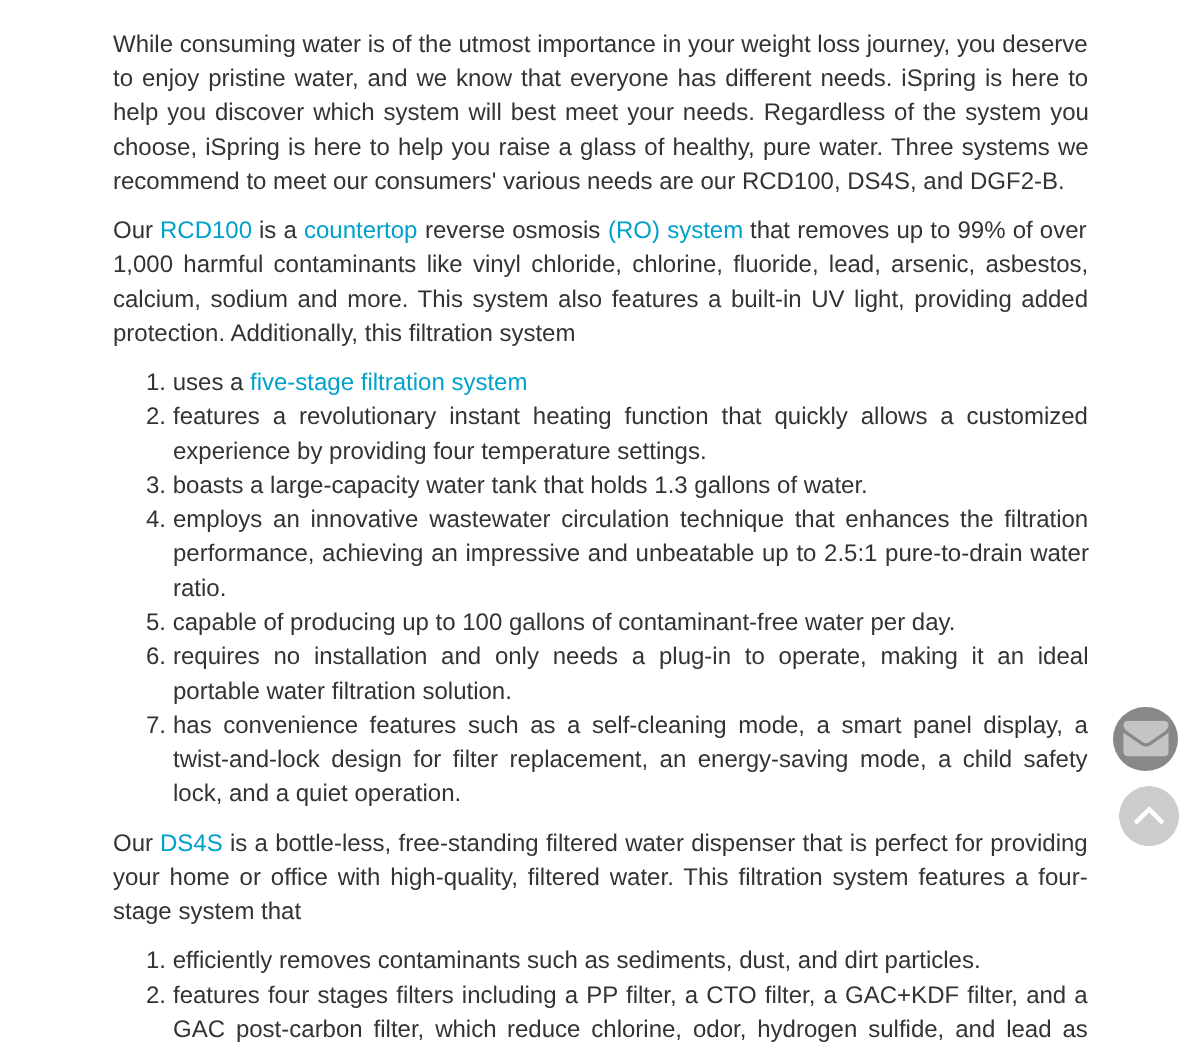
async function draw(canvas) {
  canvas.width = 1200
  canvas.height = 1048
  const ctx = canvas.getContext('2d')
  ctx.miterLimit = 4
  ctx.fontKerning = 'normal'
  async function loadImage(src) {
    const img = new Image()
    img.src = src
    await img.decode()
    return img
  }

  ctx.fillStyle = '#fff'
  ctx.fillRect(0, 0, 1200, 1048)
  ctx.font = '24px Liberation Sans'
  ctx.fillStyle = '#333'
  ctx.fillText('While consuming water is of the utmost importance in your weight loss journey, you deserve', 113, 52)
  ctx.wordSpacing = '2.25px'
  ctx.fillText('to enjoy pristine water, and we know that everyone has different needs. iSpring is here to', 113, 86)
  ctx.fillText('help you discover which system will best meet your needs. Regardless of the system you', 113, 120)
  ctx.wordSpacing = '1.5px'
  ctx.fillText('choose, iSpring is here to help you raise a glass of healthy, pure water. Three systems we', 113, 155)
  ctx.wordSpacing = '0px'
  ctx.fillText('recommend to meet our consumers\' various needs are our RCD100, DS4S, and DGF2-B.', 113, 189)
  ctx.fillText('Our', 113, 238)
  ctx.fillStyle = '#00a1cb'
  ctx.fillText('RCD100', 160, 238)
  ctx.wordSpacing = '0.5px'
  ctx.fillStyle = '#333'
  ctx.fillText('is a', 259, 238)
  ctx.wordSpacing = '0px'
  ctx.fillStyle = '#00a1cb'
  ctx.fillText('countertop', 304, 238)
  ctx.wordSpacing = '0.5px'
  ctx.fillStyle = '#333'
  ctx.fillText('reverse osmosis', 425, 238)
  ctx.fillStyle = '#00a1cb'
  ctx.fillText('(RO) system', 608, 238)
  ctx.fillStyle = '#333'
  ctx.fillText('that removes up to 99% of over', 750, 238)
  ctx.wordSpacing = '3.6px'
  ctx.fillText('1,000 harmful contaminants like vinyl chloride, chlorine, fluoride, lead, arsenic, asbestos,', 113, 272)
  ctx.wordSpacing = '2.9px'
  ctx.fillText('calcium, sodium and more. This system also features a built-in UV light, providing added', 113, 307)
  ctx.wordSpacing = '0px'
  ctx.fillText('protection. Additionally, this filtration system', 113, 341)
  ctx.fillText('1. uses a', 146, 390)
  ctx.fillStyle = '#00a1cb'
  ctx.fillText('five-stage filtration system', 250, 390)
  ctx.fillStyle = '#333'
  ctx.fillText('2.', 146, 424)
  ctx.wordSpacing = '6.25px'
  ctx.fillText('features a revolutionary instant heating function that quickly allows a customized', 173, 424)
  ctx.wordSpacing = '0px'
  ctx.fillText('experience by providing four temperature settings.', 173, 459)
  ctx.fillText('3. boasts a large-capacity water tank that holds 1.3 gallons of water.', 146, 493)
  ctx.fillText('4.', 146, 527)
  ctx.wordSpacing = '4px'
  ctx.fillText('employs an innovative wastewater circulation technique that enhances the filtration', 173, 527)
  ctx.wordSpacing = '1px'
  ctx.fillText('performance, achieving an impressive and unbeatable up to 2.5:1 pure-to-drain water', 173, 561)
  ctx.wordSpacing = '0px'
  ctx.fillText('ratio.', 173, 596)
  ctx.fillText('5. capable of producing up to 100 gallons of contaminant-free water per day.', 146, 630)
  ctx.fillText('6.', 146, 664)
  ctx.wordSpacing = '7.1px'
  ctx.fillText('requires no installation and only needs a plug-in to operate, making it an ideal', 173, 664)
  ctx.wordSpacing = '0px'
  ctx.fillText('portable water filtration solution.', 173, 699)
  ctx.fillText('7.', 146, 733)
  ctx.wordSpacing = '4.9px'
  ctx.fillText('has convenience features such as a self-cleaning mode, a smart panel display, a', 173, 733)
  ctx.wordSpacing = '4.75px'
  ctx.fillText('twist-and-lock design for filter replacement, an energy-saving mode, a child safety', 173, 767)
  ctx.wordSpacing = '0px'
  ctx.fillText('lock, and a quiet operation.', 173, 801)
  ctx.fillText('Our', 113, 851)
  ctx.fillStyle = '#00a1cb'
  ctx.fillText('DS4S', 160, 851)
  ctx.wordSpacing = '0.6px'
  ctx.fillStyle = '#333'
  ctx.fillText('is a bottle-less, free-standing filtered water dispenser that is perfect for providing', 230, 851)
  ctx.wordSpacing = '3.25px'
  ctx.fillText('your home or office with high-quality, filtered water. This filtration system features a four-', 113, 885)
  ctx.wordSpacing = '0px'
  ctx.fillText('stage system that', 113, 919)
  ctx.fillText('1. efficiently removes contaminants such as sediments, dust, and dirt particles.', 146, 968)
  ctx.fillText('2.', 146, 1003)
  ctx.wordSpacing = '1.5px'
  ctx.fillText('features four stages filters including a PP filter, a CTO filter, a GAC+KDF filter, and a', 173, 1003)
  ctx.wordSpacing = '4.25px'
  ctx.fillText('GAC post-carbon filter, which', 173, 1037)
  ctx.fillText('reduce chlorine, odor, hydrogen sulfide, and lead as', 507, 1037)
  ctx.fillStyle = '#888'
  ctx.beginPath()
  ctx.roundRect(1113, 707, 65, 64, 32)
  ctx.fill()
  ctx.drawImage(await loadImage('image0.png'), 1123, 720, 46, 37)
  ctx.drawImage(await loadImage('image1.png'), 1119, 786, 60, 60)
}

draw(document.querySelector('canvas'))
